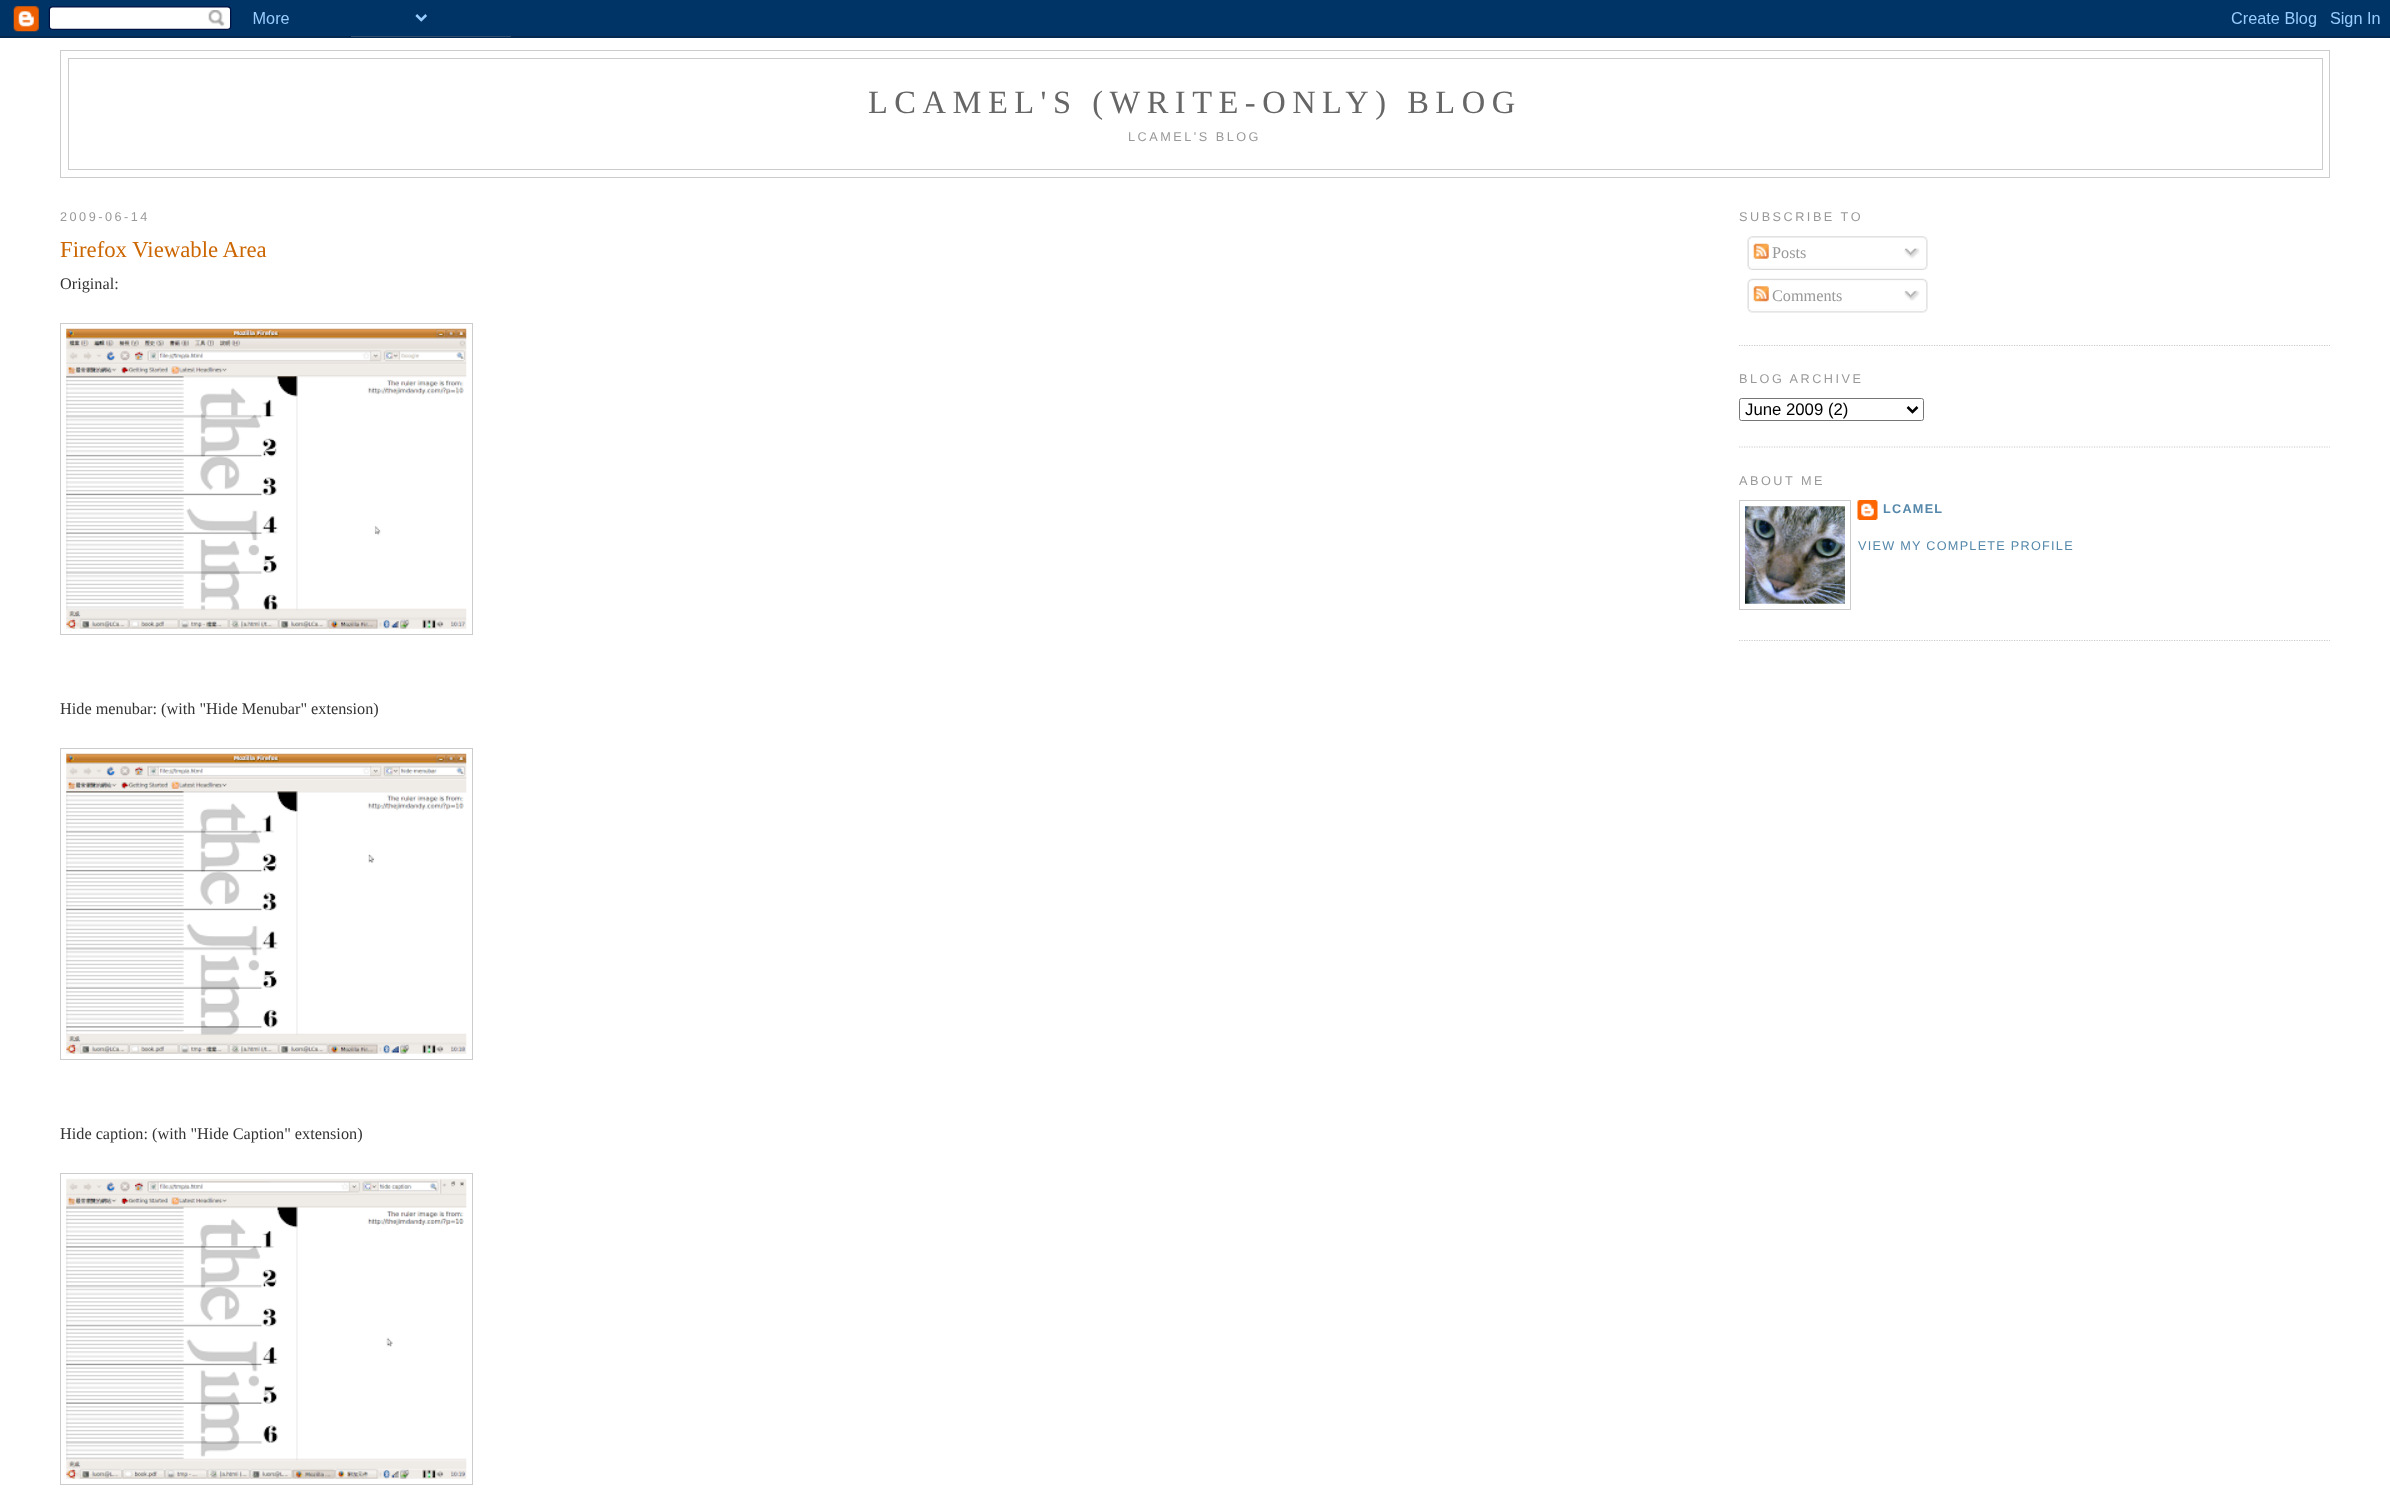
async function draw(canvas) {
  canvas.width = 2390
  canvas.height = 1500
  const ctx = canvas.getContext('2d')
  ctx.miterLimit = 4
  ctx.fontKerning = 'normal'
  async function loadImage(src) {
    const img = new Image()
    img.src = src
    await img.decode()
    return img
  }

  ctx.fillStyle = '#fff'
  ctx.fillRect(0, 0, 2390, 1500)
  ctx.drawImage(await loadImage('image0.png'), 0, 0, 2390, 38)
  ctx.strokeStyle = '#ccc'
  ctx.strokeRect(60.5, 50.5, 2269, 127)
  ctx.strokeRect(68.5, 58.5, 2254, 111)
  ctx.letterSpacing = '6.5px'
  ctx.font = '32.5px Liberation Serif'
  ctx.fillStyle = '#666'
  ctx.fillText('LCAMEL\'S (WRITE-ONLY) BLOG', 868, 113)
  ctx.letterSpacing = '2.5px'
  ctx.font = '12.7px Liberation Sans'
  ctx.fillStyle = '#999'
  ctx.fillText('LCAMEL\'S BLOG', 1128, 141)
  ctx.fillText('2009-06-14', 60, 221)
  ctx.letterSpacing = '0px'
  ctx.font = '22.75px Liberation Serif'
  ctx.fillStyle = '#c60'
  ctx.fillText('Firefox Viewable Area', 60, 257)
  ctx.font = '16.25px Liberation Serif'
  ctx.fillStyle = '#333'
  ctx.fillText('Original:', 60, 289)
  ctx.strokeRect(60.5, 323.5, 412, 311)
  ctx.drawImage(await loadImage('image1.png'), 66, 328, 401, 301)
  ctx.fillText('Hide menubar: (with "Hide Menubar" extension)', 60, 714)
  ctx.strokeRect(60.5, 748.5, 412, 311)
  ctx.drawImage(await loadImage('image2.png'), 66, 753, 401, 301)
  ctx.fillText('Hide caption: (with "Hide Caption" extension)', 60, 1139)
  ctx.strokeRect(60.5, 1173.5, 412, 311)
  ctx.drawImage(await loadImage('image3.png'), 66, 1178, 401, 301)
  ctx.beginPath()
  ctx.moveTo(1739, 345.5)
  ctx.lineTo(2330, 345.5)
  ctx.lineWidth = 1.2
  ctx.setLineDash([1.25, 1.25])
  ctx.stroke()
  ctx.letterSpacing = '2.5px'
  ctx.font = '12.7px Liberation Sans'
  ctx.fillStyle = '#999'
  ctx.fillText('SUBSCRIBE TO', 1739, 221)
  ctx.drawImage(await loadImage('image4.png'), 1747, 236, 181, 31)
  ctx.drawImage(await loadImage('image5.png'), 1753, 243, 16, 16)
  ctx.letterSpacing = '0px'
  ctx.font = '16.25px Liberation Serif'
  ctx.fillText('Posts', 1772, 258)
  ctx.drawImage(await loadImage('image6.png'), 1904, 248, 16, 11)
  ctx.drawImage(await loadImage('image7.png'), 1747, 266, 181, 4)
  ctx.drawImage(await loadImage('image8.png'), 1747, 278, 181, 31)
  ctx.drawImage(await loadImage('image9.png'), 1753, 286, 16, 16)
  ctx.fillText('Comments', 1772, 301)
  ctx.drawImage(await loadImage('image10.png'), 1904, 290, 16, 11)
  ctx.drawImage(await loadImage('image11.png'), 1747, 309, 181, 4)
  ctx.beginPath()
  ctx.moveTo(1739, 447)
  ctx.lineTo(2330, 447)
  ctx.stroke()
  ctx.letterSpacing = '2.5px'
  ctx.font = '12.7px Liberation Sans'
  ctx.fillText('BLOG ARCHIVE', 1739, 383)
  ctx.beginPath()
  ctx.roundRect(1739.5, 398.5, 184, 22, 2)
  ctx.strokeStyle = '#767676'
  ctx.lineWidth = 1
  ctx.setLineDash([])
  ctx.stroke()
  ctx.beginPath()
  ctx.moveTo(1907.5, 407)
  ctx.lineTo(1912.5, 412)
  ctx.lineTo(1917.5, 407)
  ctx.strokeStyle = '#000'
  ctx.lineWidth = 2.5
  ctx.stroke()
  ctx.letterSpacing = '0px'
  ctx.font = '16.75px Liberation Sans'
  ctx.fillStyle = '#000'
  ctx.fillText('June 2009 (2)', 1745, 415)
  ctx.beginPath()
  ctx.moveTo(1739, 640.5)
  ctx.lineTo(2330, 640.5)
  ctx.strokeStyle = '#ccc'
  ctx.lineWidth = 1.2
  ctx.setLineDash([1.25, 1.25])
  ctx.stroke()
  ctx.letterSpacing = '2.5px'
  ctx.font = '12.7px Liberation Sans'
  ctx.fillStyle = '#999'
  ctx.fillText('ABOUT ME', 1739, 485)
  ctx.lineWidth = 1
  ctx.setLineDash([])
  ctx.strokeRect(1739.5, 500.5, 111, 109)
  ctx.drawImage(await loadImage('image12.png'), 1745, 506, 100, 98)
  ctx.drawImage(await loadImage('image13.png'), 1857, 500, 21, 20)
  ctx.letterSpacing = '1.25px'
  ctx.font = 'bold 12.7px Liberation Sans'
  ctx.fillStyle = '#58a'
  ctx.fillText('LCAMEL', 1883, 513)
  ctx.font = '12.7px Liberation Sans'
  ctx.fillText('VIEW MY COMPLETE PROFILE', 1858, 550)
}

draw(document.querySelector('canvas'))
